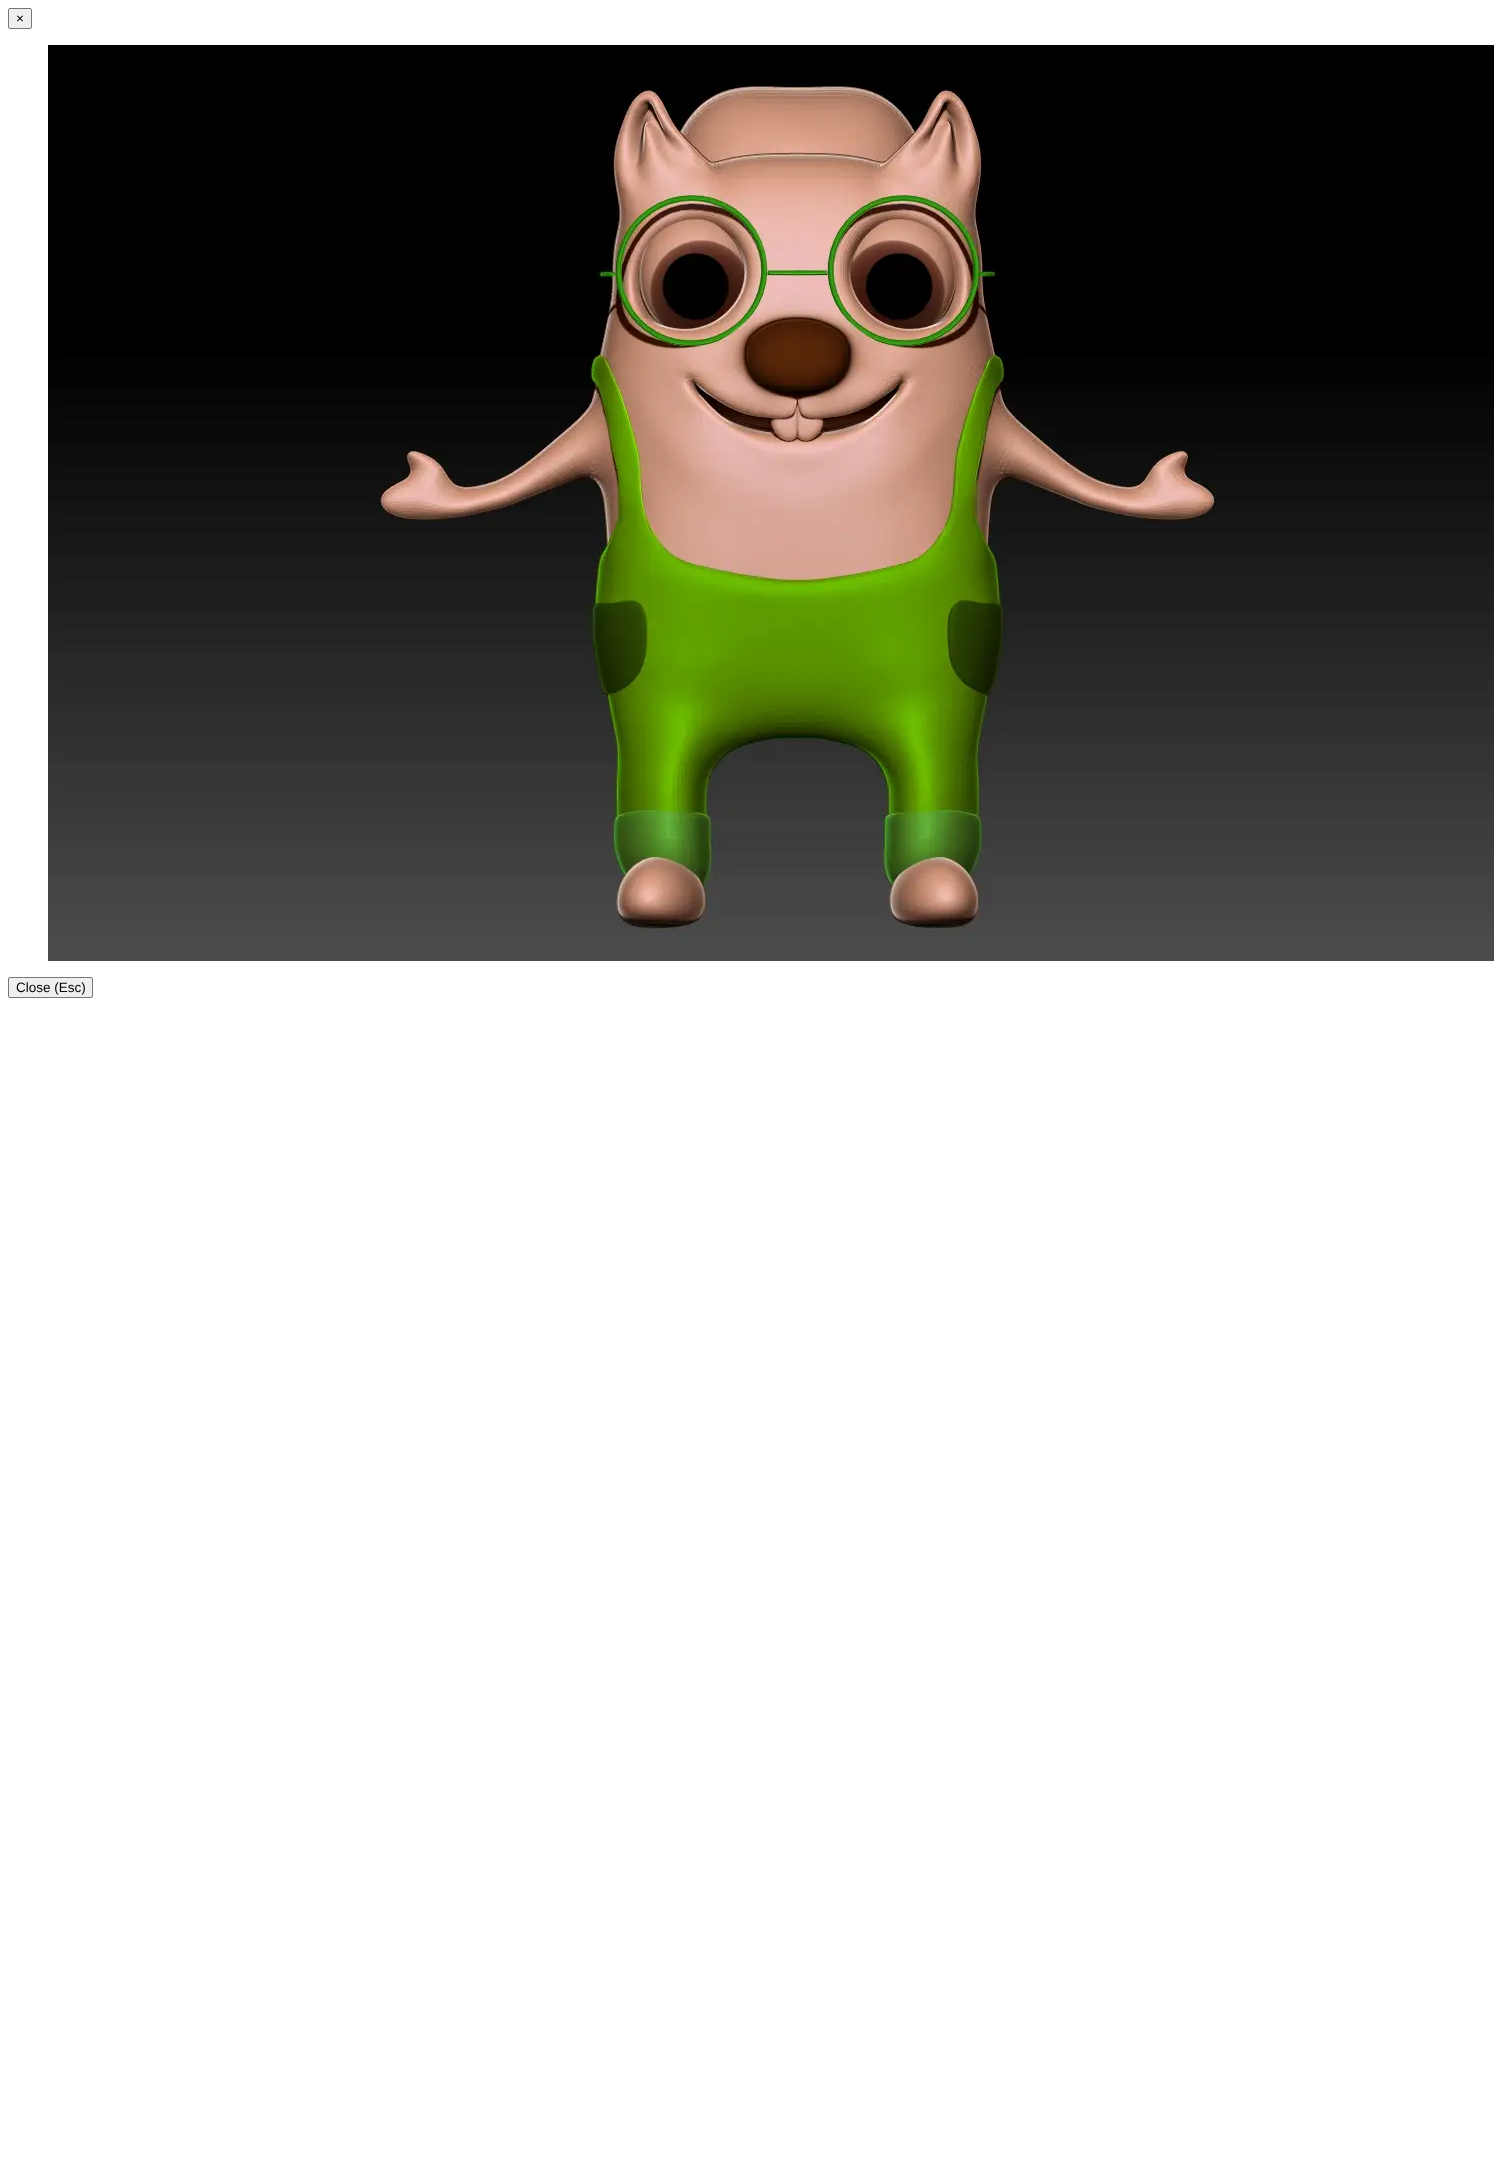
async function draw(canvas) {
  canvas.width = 1494
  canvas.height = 2169
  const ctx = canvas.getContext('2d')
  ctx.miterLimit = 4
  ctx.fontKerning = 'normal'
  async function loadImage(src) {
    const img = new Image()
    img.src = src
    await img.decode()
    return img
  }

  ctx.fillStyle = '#fff'
  ctx.fillRect(0, 0, 1494, 2169)
  ctx.fillStyle = '#efefef'
  ctx.beginPath()
  ctx.roundRect(8.5, 8.5, 23, 20, 1.5)
  ctx.fill()
  ctx.strokeStyle = '#767676'
  ctx.stroke()
  ctx.font = '13.5px Liberation Sans'
  ctx.fillStyle = '#000'
  ctx.fillText('×', 16, 23)
  ctx.drawImage(await loadImage('image0.png'), 48, 45, 1446, 916)
  ctx.fillStyle = '#efefef'
  ctx.beginPath()
  ctx.roundRect(8.5, 977.5, 84, 20, 1.5)
  ctx.fill()
  ctx.stroke()
  ctx.fillStyle = '#000'
  ctx.fillText('Close (Esc)', 16, 992)
}

draw(document.querySelector('canvas'))
